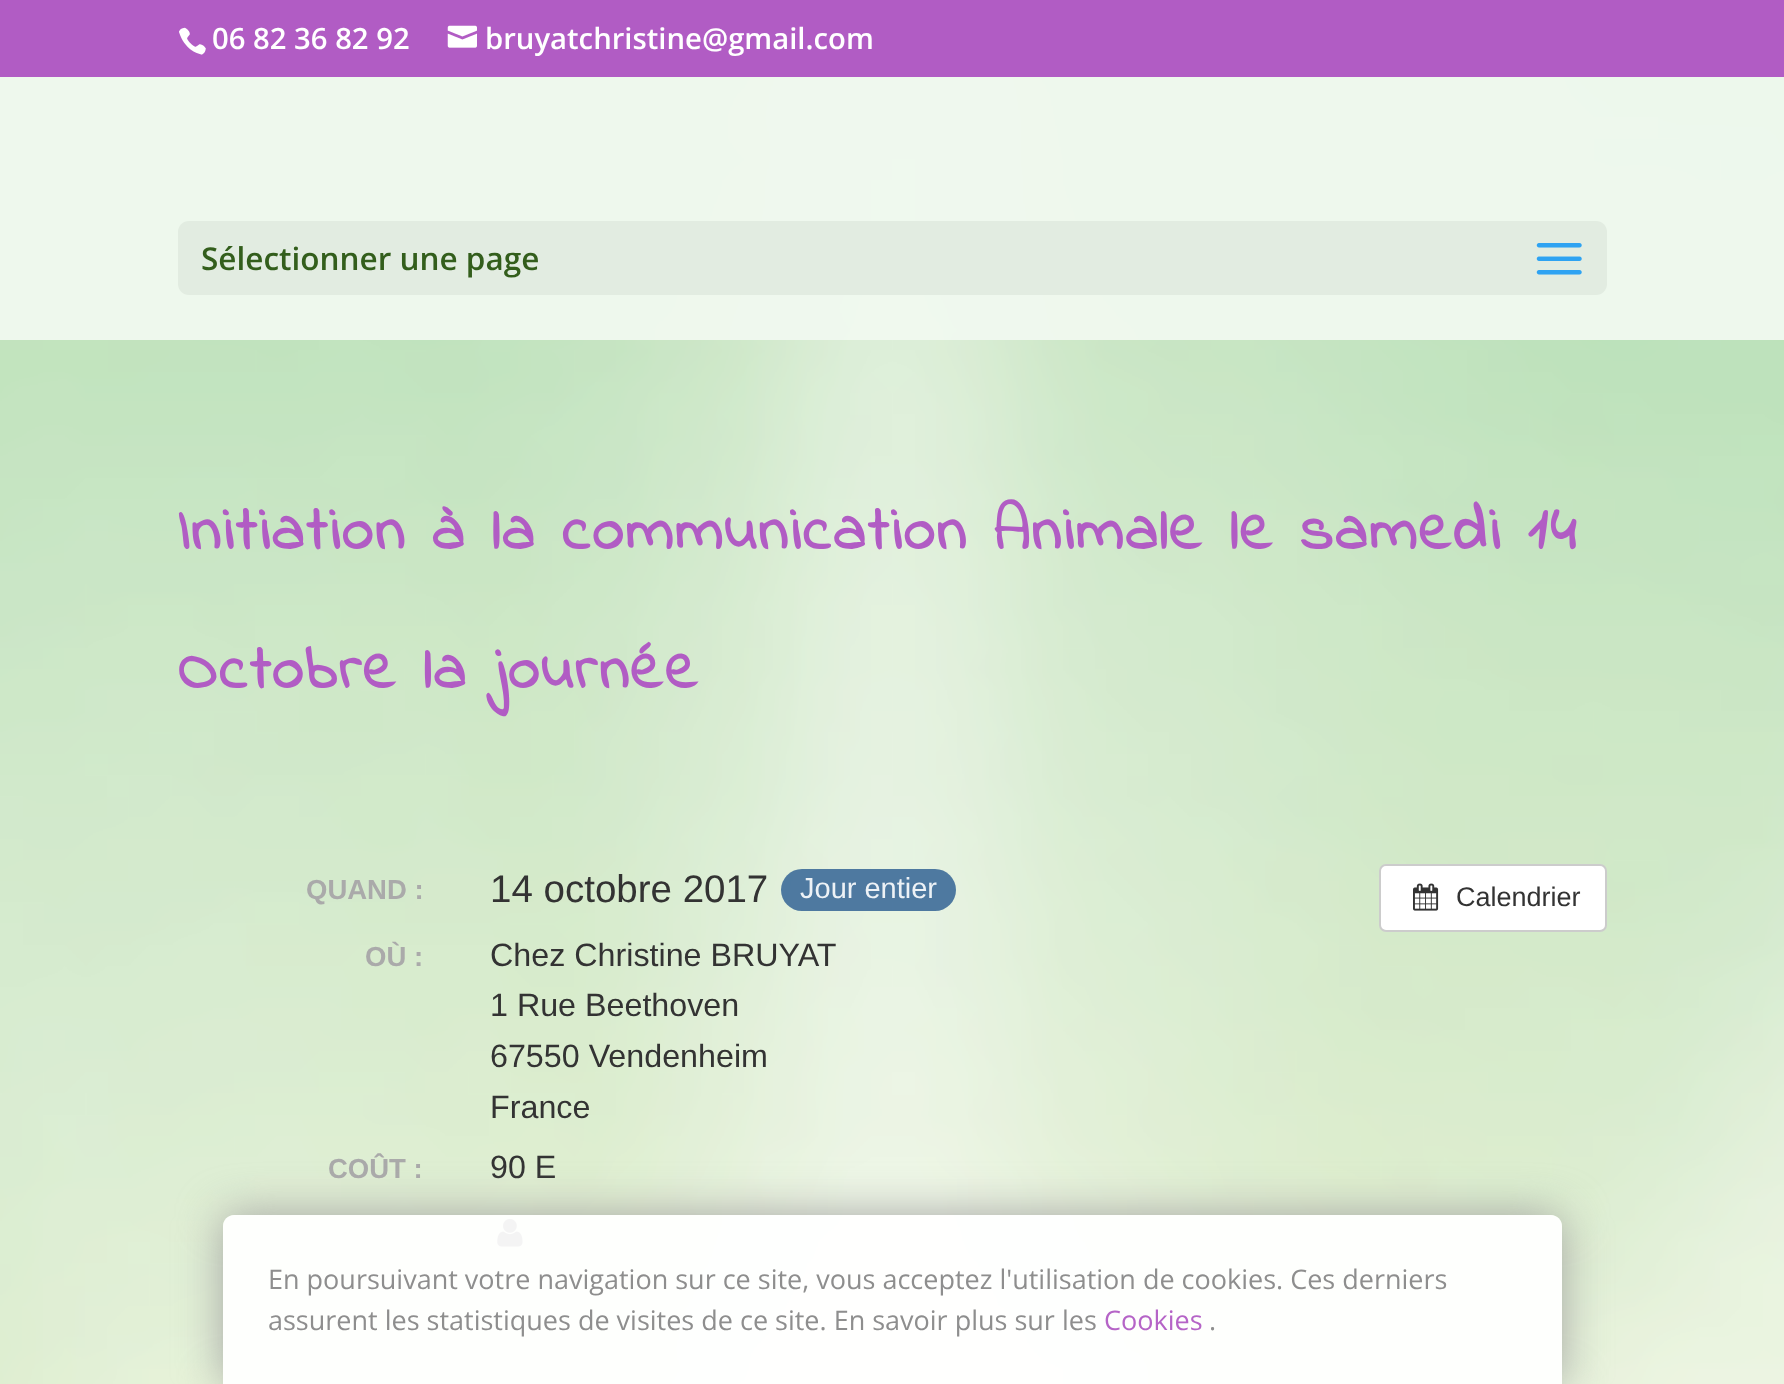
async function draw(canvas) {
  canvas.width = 1784
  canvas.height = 1384
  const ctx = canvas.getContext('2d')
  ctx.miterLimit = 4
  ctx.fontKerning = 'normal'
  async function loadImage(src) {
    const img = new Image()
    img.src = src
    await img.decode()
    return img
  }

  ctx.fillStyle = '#fff'
  ctx.fillRect(0, 0, 1784, 1384)
  ctx.drawImage(await loadImage('image0.png'), 0, 77, 1784, 1307)
  ctx.fillStyle = '#b15cc4'
  ctx.fillRect(0, 0, 1784, 77)
  ctx.drawImage(await loadImage('image1.png'), 179, 27, 27, 28)
  ctx.font = '600 29.25px Open Sans'
  ctx.fillStyle = '#fff'
  ctx.fillText('06 82 36 82 92', 212, 49)
  ctx.drawImage(await loadImage('image2.png'), 447, 25, 30, 23)
  ctx.fillText('bruyatchristine@gmail.com', 485, 49)
  ctx.fillStyle = '#f0f9eff2'
  ctx.fillRect(0, 77, 1784, 263)
  ctx.fillStyle = '#e2ece1'
  ctx.beginPath()
  ctx.roundRect(178, 221, 1429, 74, 11)
  ctx.fill()
  ctx.font = '600 31.5px Open Sans'
  ctx.fillStyle = '#335e1c'
  ctx.fillText('Sélectionner une page', 201, 270)
  ctx.drawImage(await loadImage('image3.png'), 1536, 243, 46, 32)
  ctx.letterSpacing = '2.25px'
  ctx.font = 'bold 63px Indie Flower'
  ctx.fillStyle = '#b15cc4'
  ctx.fillText('Initiation à la communication Animale le samedi 14', 178, 549)
  ctx.fillText('Octobre la journée', 178, 688)
  ctx.letterSpacing = '0px'
  ctx.font = 'bold 27.5px Liberation Sans'
  ctx.fillStyle = '#aaa'
  ctx.fillText('QUAND :', 306, 899)
  ctx.font = '38.5px Liberation Sans'
  ctx.fillStyle = '#333'
  ctx.fillText('14 octobre 2017', 490, 902)
  ctx.fillStyle = '#3d6b99e6'
  ctx.beginPath()
  ctx.roundRect(781, 869, 175, 42, 21)
  ctx.fill()
  ctx.font = '29px Liberation Sans'
  ctx.fillStyle = '#edf2f6'
  ctx.fillText('Jour entier', 800, 898)
  ctx.font = 'bold 27.5px Liberation Sans'
  ctx.fillStyle = '#aaa'
  ctx.fillText('OÙ :', 365, 966)
  ctx.font = '32.25px Liberation Sans'
  ctx.fillStyle = '#333'
  ctx.fillText('Chez Christine BRUYAT', 490, 966)
  ctx.fillText('1 Rue Beethoven', 490, 1016)
  ctx.fillText('67550 Vendenheim', 490, 1067)
  ctx.fillText('France', 490, 1118)
  ctx.font = 'bold 27.5px Liberation Sans'
  ctx.fillStyle = '#aaa'
  ctx.fillText('COÛT :', 328, 1178)
  ctx.font = '32.25px Liberation Sans'
  ctx.fillStyle = '#333'
  ctx.fillText('90 E', 490, 1178)
  ctx.drawImage(await loadImage('image4.png'), 497, 1219, 26, 28)
  ctx.fillStyle = '#fff'
  ctx.beginPath()
  ctx.roundRect(1380, 865, 226, 66, 6)
  ctx.fill()
  ctx.strokeStyle = '#ccc'
  ctx.lineWidth = 2
  ctx.stroke()
  ctx.drawImage(await loadImage('image5.png'), 1413, 883, 26, 28)
  ctx.font = '27px Liberation Sans'
  ctx.fillStyle = '#333'
  ctx.fillText('Calendrier', 1456, 906)
  ctx.save()
  ctx.beginPath()
  ctx.moveTo(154, 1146)
  ctx.lineTo(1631, 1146)
  ctx.lineTo(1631, 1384)
  ctx.lineTo(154, 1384)
  ctx.closePath()
  ctx.moveTo(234, 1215)
  ctx.lineTo(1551, 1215)
  ctx.bezierCurveTo(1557, 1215, 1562, 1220, 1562, 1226)
  ctx.lineTo(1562, 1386)
  ctx.lineTo(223, 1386)
  ctx.lineTo(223, 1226)
  ctx.bezierCurveTo(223, 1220, 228, 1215, 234, 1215)
  ctx.closePath()
  ctx.clip('evenodd')
  ctx.fillStyle = '#a1a1a1f2'
  ctx.filter = 'blur(22.5px)'
  ctx.beginPath()
  ctx.roundRect(223, 1215, 1339, 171, 11)
  ctx.fill()
  ctx.filter = 'none'
  ctx.restore()
  ctx.fillStyle = '#fffffff2'
  ctx.beginPath()
  ctx.moveTo(234, 1215)
  ctx.lineTo(1551, 1215)
  ctx.bezierCurveTo(1557, 1215, 1562, 1220, 1562, 1226)
  ctx.lineTo(1562, 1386)
  ctx.lineTo(223, 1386)
  ctx.lineTo(223, 1226)
  ctx.bezierCurveTo(223, 1220, 228, 1215, 234, 1215)
  ctx.closePath()
  ctx.fill()
  ctx.font = '27px Open Sans'
  ctx.fillStyle = '#8e8e8e'
  ctx.fillText('En poursuivant votre navigation sur ce site, vous acceptez l\'utilisation de cookies. Ces derniers', 268, 1289)
  ctx.fillText('assurent les statistiques de visites de ce site. En savoir plus sur les', 268, 1330)
  ctx.fillStyle = '#b564c7'
  ctx.fillText('Cookies', 1104, 1330)
  ctx.fillStyle = '#8e8e8e'
  ctx.fillText('.', 1209, 1330)
}

draw(document.querySelector('canvas'))
